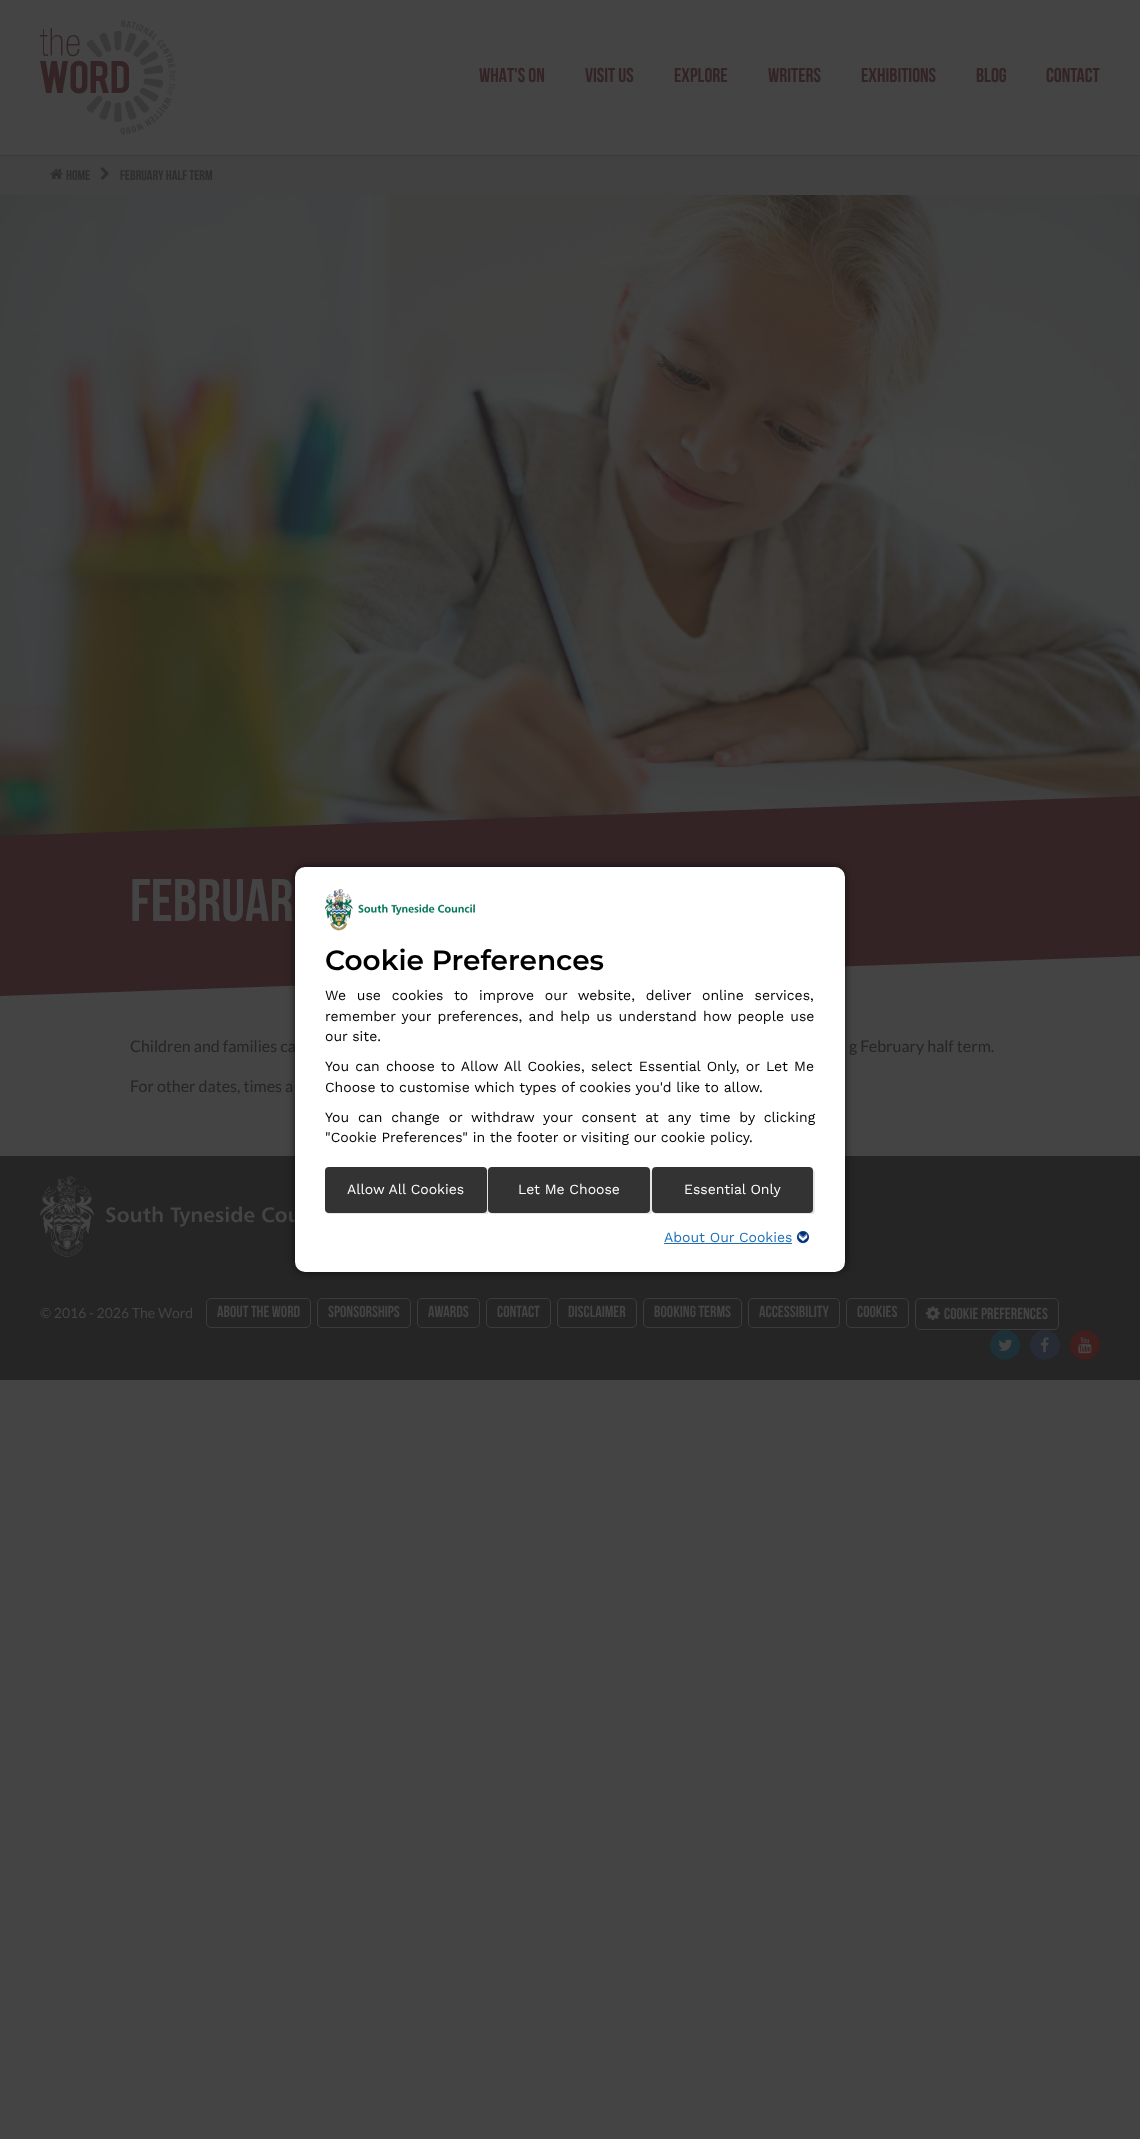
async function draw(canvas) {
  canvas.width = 1140
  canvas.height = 2139
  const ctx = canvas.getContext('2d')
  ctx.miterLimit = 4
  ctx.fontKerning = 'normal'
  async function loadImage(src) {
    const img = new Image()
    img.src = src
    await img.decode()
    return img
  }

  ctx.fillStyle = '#444'
  ctx.fillRect(0, 0, 1140, 2139)
  ctx.fillStyle = '#3a3a3a'
  ctx.fillRect(0, 155, 1140, 1)
  ctx.drawImage(await loadImage('image0.png'), 40, 20, 136, 115)
  ctx.font = 'bold 20px Bebas Neue'
  ctx.fillStyle = '#332325'
  ctx.fillText('WHAT\'S ON', 479, 82)
  ctx.fillText('VISIT US', 585, 82)
  ctx.fillText('EXPLORE', 674, 82)
  ctx.fillText('WRITERS', 768, 82)
  ctx.fillText('EXHIBITIONS', 861, 82)
  ctx.fillText('BLOG', 976, 82)
  ctx.fillText('CONTACT', 1046, 82)
  ctx.fillStyle = '#414141'
  ctx.fillRect(0, 156, 1140, 39)
  ctx.drawImage(await loadImage('image1.png'), 50, 169, 13, 10)
  ctx.font = 'bold 14px Bebas Neue'
  ctx.fillStyle = '#2d2d2d'
  ctx.fillText('HOME', 66, 180)
  ctx.drawImage(await loadImage('image2.png'), 100, 167, 9, 13)
  ctx.fillText('FEBRUARY HALF TERM', 120, 180)
  ctx.drawImage(await loadImage('image3.png'), 0, 195, 1140, 641)
  ctx.fillStyle = '#332325'
  ctx.beginPath()
  ctx.moveTo(0, 836)
  ctx.lineTo(1140, 796)
  ctx.lineTo(1140, 836)
  ctx.closePath()
  ctx.fill()
  ctx.fillRect(0, 836, 1140, 160)
  ctx.font = 'bold 60px Bebas Neue'
  ctx.fillStyle = '#444'
  ctx.fillText('FEBRUAR', 130, 921)
  ctx.beginPath()
  ctx.moveTo(0, 996)
  ctx.lineTo(1140, 956)
  ctx.lineTo(1140, 996)
  ctx.closePath()
  ctx.fill()
  ctx.font = '16px Lato'
  ctx.fillStyle = '#252525'
  ctx.fillText('Children and families ca', 130, 1052)
  ctx.fillText('g February half term.', 849, 1052)
  ctx.fillText('For other dates, times a', 130, 1092)
  ctx.fillRect(0, 1156, 1140, 224)
  ctx.drawImage(await loadImage('image6.png'), 40, 1176, 255, 81)
  ctx.fillStyle = '#000'
  ctx.filter = 'blur(5px)'
  ctx.beginPath()
  ctx.roundRect(297, 869, 546, 401, 8)
  ctx.fill()
  ctx.filter = 'none'
  ctx.fillStyle = '#fff'
  ctx.beginPath()
  ctx.roundRect(295, 867, 550, 405, 10)
  ctx.fill()
  ctx.drawImage(await loadImage('image4.png'), 325, 889, 150, 42)
  ctx.font = '600 28px Montserrat'
  ctx.fillStyle = '#000'
  ctx.fillText('Cookie Preferences', 325, 970)
  ctx.wordSpacing = '6px'
  ctx.font = '14px Work Sans'
  ctx.fillText('We use cookies to improve our website, deliver online services,', 325, 1000)
  ctx.wordSpacing = '1.5px'
  ctx.fillText('remember your preferences, and help us understand how people use', 325, 1021)
  ctx.wordSpacing = '0px'
  ctx.fillText('our site.', 325, 1041)
  ctx.wordSpacing = '1.5px'
  ctx.fillText('You can choose to Allow All Cookies, select Essential Only, or Let Me', 325, 1071)
  ctx.wordSpacing = '0px'
  ctx.fillText('Choose to customise which types of cookies you\'d like to allow.', 325, 1092)
  ctx.wordSpacing = '4.1px'
  ctx.fillText('You can change or withdraw your consent at any time by clicking', 325, 1122)
  ctx.wordSpacing = '0px'
  ctx.fillText('"Cookie Preferences" in the footer or visiting our cookie policy.', 325, 1142)
  ctx.save()
  ctx.beginPath()
  ctx.rect(325, 1167, 490, 47)
  ctx.clip()
  ctx.fillStyle = '#e6e6e6'
  ctx.beginPath()
  ctx.moveTo(327, 1213)
  ctx.bezierCurveTo(328, 1214, 329, 1215, 331, 1215)
  ctx.lineTo(485, 1215)
  ctx.bezierCurveTo(487, 1215, 489, 1213, 489, 1211)
  ctx.lineTo(489, 1173)
  ctx.bezierCurveTo(489, 1171, 488, 1170, 486, 1169)
  ctx.lineTo(487, 1171)
  ctx.lineTo(487, 1209)
  ctx.bezierCurveTo(487, 1211, 485, 1213, 483, 1213)
  ctx.lineTo(329, 1213)
  ctx.closePath()
  ctx.fill()
  ctx.restore()
  ctx.fillStyle = '#333'
  ctx.beginPath()
  ctx.roundRect(325, 1167, 162, 46, 4)
  ctx.fill()
  ctx.fillStyle = '#fff'
  ctx.fillText('Allow All Cookies', 347, 1194)
  ctx.save()
  ctx.beginPath()
  ctx.rect(325, 1167, 490, 47)
  ctx.clip()
  ctx.fillStyle = '#e6e6e6'
  ctx.beginPath()
  ctx.moveTo(490, 1213)
  ctx.bezierCurveTo(491, 1214, 492, 1215, 494, 1215)
  ctx.lineTo(648, 1215)
  ctx.bezierCurveTo(650, 1215, 652, 1213, 652, 1211)
  ctx.lineTo(652, 1173)
  ctx.bezierCurveTo(652, 1171, 651, 1170, 649, 1169)
  ctx.lineTo(650, 1171)
  ctx.lineTo(650, 1209)
  ctx.bezierCurveTo(650, 1211, 648, 1213, 646, 1213)
  ctx.lineTo(492, 1213)
  ctx.closePath()
  ctx.fill()
  ctx.restore()
  ctx.fillStyle = '#333'
  ctx.beginPath()
  ctx.roundRect(488, 1167, 162, 46, 4)
  ctx.fill()
  ctx.fillStyle = '#fff'
  ctx.fillText('Let Me Choose', 518, 1194)
  ctx.save()
  ctx.beginPath()
  ctx.rect(325, 1167, 490, 47)
  ctx.clip()
  ctx.fillStyle = '#e6e6e6'
  ctx.beginPath()
  ctx.moveTo(654, 1213)
  ctx.bezierCurveTo(655, 1214, 656, 1215, 658, 1215)
  ctx.lineTo(811, 1215)
  ctx.bezierCurveTo(813, 1215, 815, 1213, 815, 1211)
  ctx.lineTo(815, 1173)
  ctx.bezierCurveTo(815, 1171, 814, 1170, 812, 1169)
  ctx.lineTo(813, 1171)
  ctx.lineTo(813, 1209)
  ctx.bezierCurveTo(813, 1211, 811, 1213, 809, 1213)
  ctx.lineTo(656, 1213)
  ctx.closePath()
  ctx.fill()
  ctx.restore()
  ctx.fillStyle = '#333'
  ctx.beginPath()
  ctx.roundRect(652, 1167, 161, 46, 4)
  ctx.fill()
  ctx.fillStyle = '#fff'
  ctx.fillText('Essential Only', 684, 1194)
  ctx.drawImage(await loadImage('image5.png'), 797, 1231, 12, 13)
  ctx.fillStyle = '#1d70b8'
  ctx.fillText('About Our Cookies', 664, 1242)
  ctx.fillRect(664, 1243, 128, 1)
  ctx.font = '14px Lato'
  ctx.fillStyle = '#444'
  ctx.fillText('© 2016 - 2026 The Word', 40, 1318)
  ctx.beginPath()
  ctx.roundRect(206.5, 1298.5, 104, 29, 4.5)
  ctx.strokeStyle = '#3c3c3c'
  ctx.stroke()
  ctx.font = 'bold 16px Bebas Neue'
  ctx.fillText('About The Word', 217, 1317)
  ctx.beginPath()
  ctx.roundRect(317.5, 1298.5, 93, 29, 4.5)
  ctx.stroke()
  ctx.fillText('Sponsorships', 328, 1317)
  ctx.beginPath()
  ctx.roundRect(417.5, 1298.5, 62, 29, 4.5)
  ctx.stroke()
  ctx.fillText('Awards', 428, 1317)
  ctx.beginPath()
  ctx.roundRect(486.5, 1298.5, 64, 29, 4.5)
  ctx.stroke()
  ctx.fillText('Contact', 497, 1317)
  ctx.beginPath()
  ctx.roundRect(557.5, 1298.5, 79, 29, 4.5)
  ctx.stroke()
  ctx.fillText('Disclaimer', 568, 1317)
  ctx.beginPath()
  ctx.roundRect(643.5, 1298.5, 98, 29, 4.5)
  ctx.stroke()
  ctx.fillText('Booking terms', 654, 1317)
  ctx.beginPath()
  ctx.roundRect(748.5, 1298.5, 91, 29, 4.5)
  ctx.stroke()
  ctx.fillText('Accessibility', 759, 1317)
  ctx.beginPath()
  ctx.roundRect(846.5, 1298.5, 62, 29, 4.5)
  ctx.stroke()
  ctx.fillText('Cookies', 857, 1317)
  ctx.beginPath()
  ctx.roundRect(915.5, 1298.5, 143, 31, 4.5)
  ctx.stroke()
  ctx.drawImage(await loadImage('image7.png'), 926, 1306, 14, 15)
  ctx.fillText('COOKIE PREFERENCES', 944, 1319)
  ctx.fillStyle = '#1e3037'
  ctx.beginPath()
  ctx.arc(1005, 1345, 15, 0, 2 * Math.PI)
  ctx.fill()
  ctx.drawImage(await loadImage('image8.png'), 998, 1339, 15, 12)
  ctx.fillStyle = '#272b35'
  ctx.beginPath()
  ctx.arc(1045, 1345, 15, 0, 2 * Math.PI)
  ctx.fill()
  ctx.drawImage(await loadImage('image9.png'), 1040, 1337, 9, 16)
  ctx.fillStyle = '#3f1e1e'
  ctx.beginPath()
  ctx.arc(1085, 1345, 15, 0, 2 * Math.PI)
  ctx.fill()
  ctx.drawImage(await loadImage('image10.png'), 1078, 1337, 14, 17)
}

draw(document.querySelector('canvas'))
